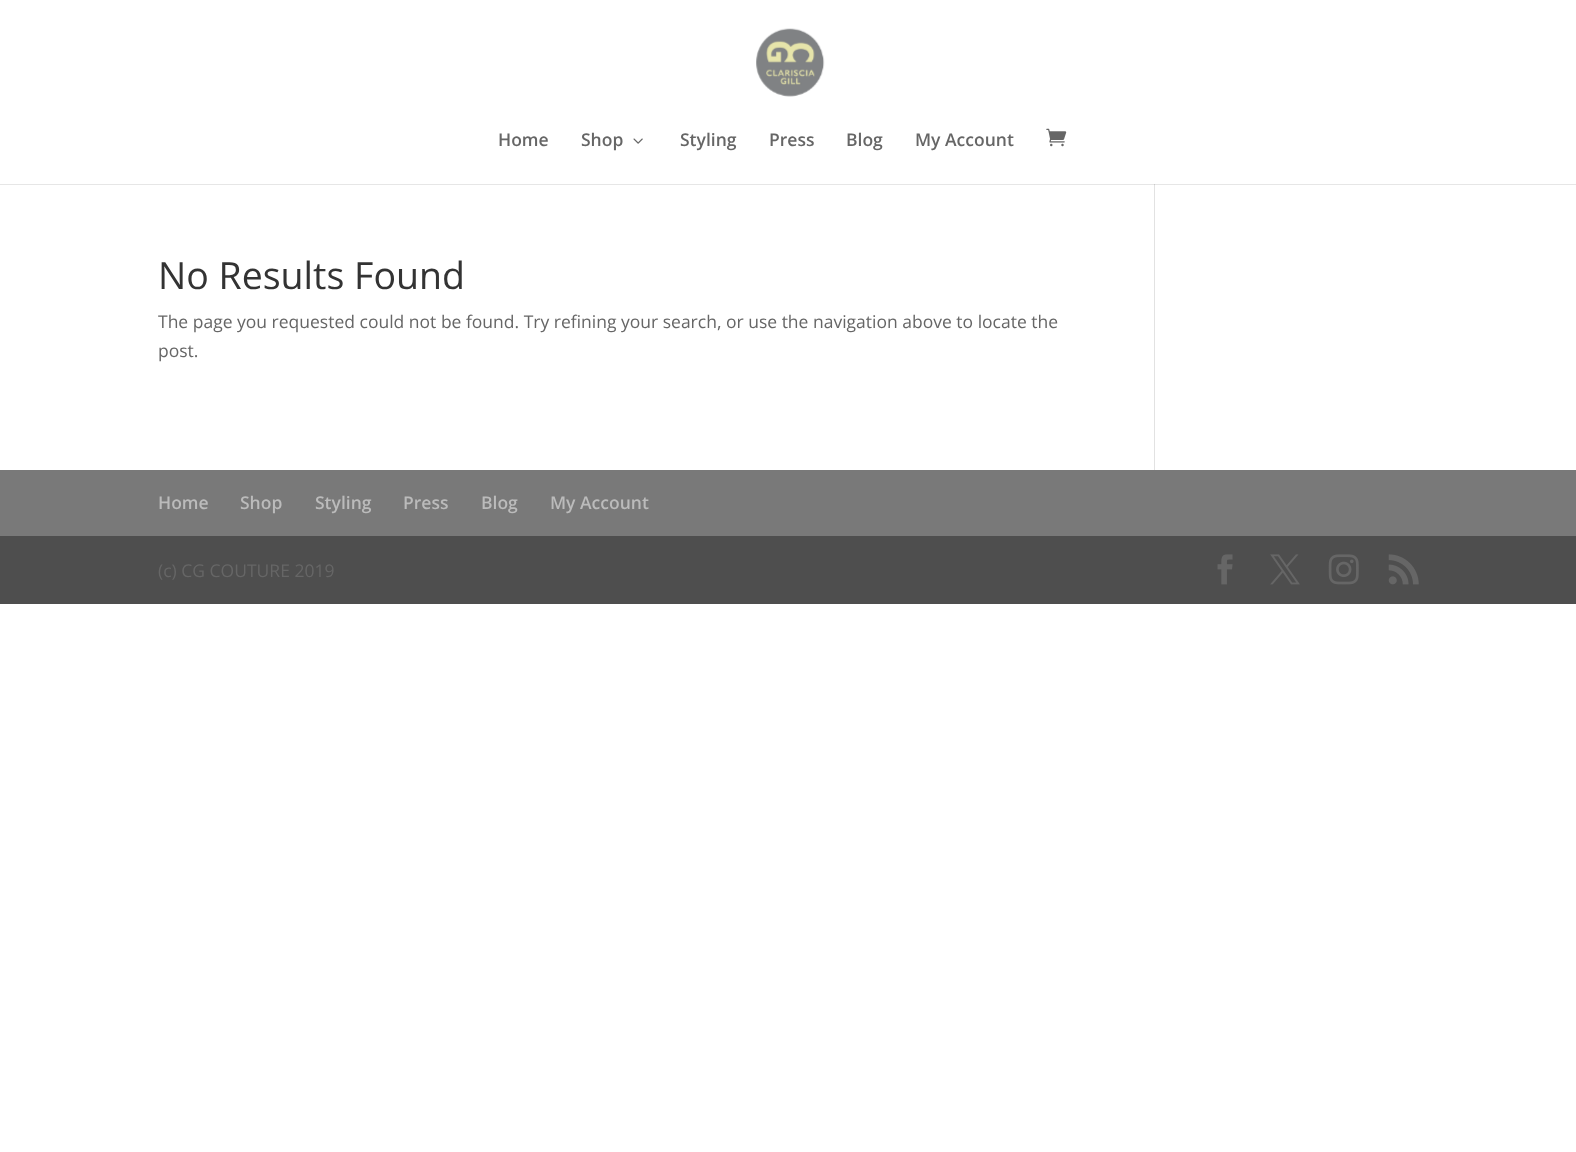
async function draw(canvas) {
  canvas.width = 1576
  canvas.height = 1152
  const ctx = canvas.getContext('2d')
  ctx.miterLimit = 4
  ctx.fontKerning = 'normal'
  async function loadImage(src) {
    const img = new Image()
    img.src = src
    await img.decode()
    return img
  }

  ctx.fillStyle = '#fff'
  ctx.fillRect(0, 0, 1576, 1152)
  ctx.fillStyle = '#e6e6e6'
  ctx.fillRect(0, 184, 1576, 1)
  ctx.drawImage(await loadImage('image0.png'), 756, 28, 69, 69)
  ctx.font = '600 17.5px Open Sans'
  ctx.fillStyle = '#666'
  ctx.fillText('Home', 498, 146)
  ctx.fillText('Shop', 581, 146)
  ctx.drawImage(await loadImage('image1.png'), 633, 138, 10, 6)
  ctx.fillText('Styling', 680, 146)
  ctx.fillText('Press', 769, 146)
  ctx.fillText('Blog', 846, 146)
  ctx.fillText('My Account', 915, 146)
  ctx.drawImage(await loadImage('image2.png'), 1046, 128, 21, 19)
  ctx.font = '37.5px Open Sans'
  ctx.fillStyle = '#333'
  ctx.fillText('No Results Found', 158, 289)
  ctx.font = '17.5px Open Sans'
  ctx.fillStyle = '#666'
  ctx.fillText('The page you requested could not be found. Try refining your search, or use the navigation above to locate the', 158, 328)
  ctx.fillText('post.', 158, 357)
  ctx.fillStyle = '#e2e2e2'
  ctx.fillRect(1154, 184, 1, 286)
  ctx.fillStyle = '#cbcbcb'
  ctx.fillRect(1154, 184, 1, 1)
  ctx.fillStyle = '#797979'
  ctx.fillRect(0, 470, 1576, 66)
  ctx.font = '600 17.5px Open Sans'
  ctx.fillStyle = '#bbb'
  ctx.fillText('Home', 158, 509)
  ctx.fillText('Shop', 240, 509)
  ctx.fillText('Styling', 315, 509)
  ctx.fillText('Press', 403, 509)
  ctx.fillText('Blog', 481, 509)
  ctx.fillText('My Account', 550, 509)
  ctx.fillStyle = '#4e4e4e'
  ctx.fillRect(0, 536, 1576, 68)
  ctx.font = '17.5px Open Sans'
  ctx.fillStyle = '#666'
  ctx.fillText('(c) CG COUTURE 2019', 158, 577)
  ctx.drawImage(await loadImage('image3.png'), 1217, 554, 16, 31)
  ctx.drawImage(await loadImage('image4.png'), 1270, 554, 30, 31)
  ctx.drawImage(await loadImage('image5.png'), 1328, 554, 31, 31)
  ctx.drawImage(await loadImage('image6.png'), 1388, 554, 31, 31)
}

draw(document.querySelector('canvas'))
